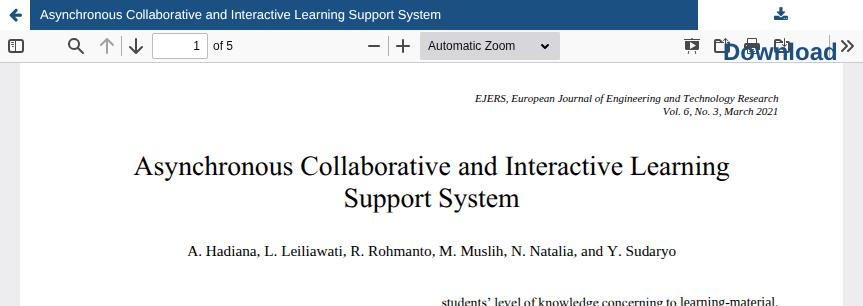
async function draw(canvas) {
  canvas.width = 863
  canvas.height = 306
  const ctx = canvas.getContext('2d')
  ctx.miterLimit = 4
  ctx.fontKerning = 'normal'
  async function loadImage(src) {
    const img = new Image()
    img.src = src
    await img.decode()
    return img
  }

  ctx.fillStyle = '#fff'
  ctx.fillRect(0, 0, 863, 306)
  ctx.fillStyle = '#1b5083'
  ctx.fillRect(30, 0, 668, 30)
  ctx.drawImage(await loadImage('image0.png'), 9, 8, 13, 14)
  ctx.font = '13px Liberation Sans'
  ctx.fillStyle = '#fff'
  ctx.fillText('Asynchronous Collaborative and Interactive Learning Support System', 40, 19)
  ctx.drawImage(await loadImage('image1.png'), 774, 7, 14, 13)
  ctx.drawImage(await loadImage('image2.png'), 0, 30, 863, 276)
  ctx.font = 'bold 24px Liberation Sans'
  ctx.fillStyle = '#1b5083'
  ctx.fillText('Download', 723, 60)
}

draw(document.querySelector('canvas'))
